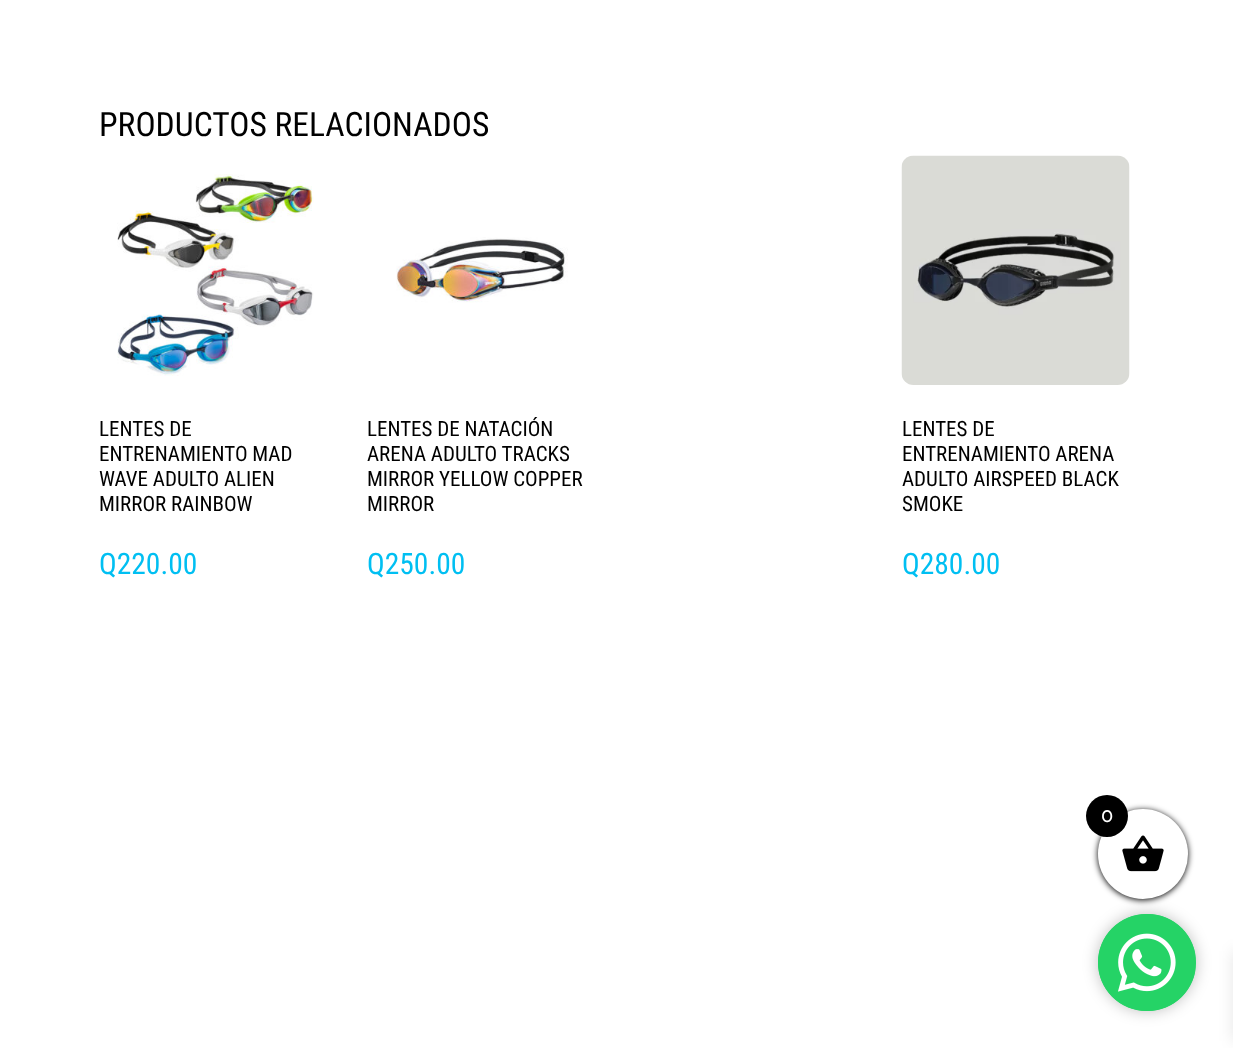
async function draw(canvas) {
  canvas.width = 1233
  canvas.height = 1048
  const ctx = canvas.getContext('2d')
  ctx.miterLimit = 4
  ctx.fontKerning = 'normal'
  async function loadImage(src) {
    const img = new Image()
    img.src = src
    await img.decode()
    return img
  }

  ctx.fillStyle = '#fff'
  ctx.fillRect(0, 0, 1233, 1048)
  ctx.font = '33.6px Roboto Condensed'
  ctx.fillStyle = '#000'
  ctx.fillText('PRODUCTOS RELACIONADOS', 99, 136)
  ctx.drawImage(await loadImage('image0.png'), 117, 174, 197, 202)
  ctx.font = '21px Roboto Condensed'
  ctx.fillText('LENTES DE', 99, 436)
  ctx.fillText('ENTRENAMIENTO MAD', 99, 461)
  ctx.fillText('WAVE ADULTO ALIEN', 99, 486)
  ctx.fillText('MIRROR RAINBOW', 99, 511)
  ctx.font = '29.5px Roboto Condensed'
  ctx.fillStyle = '#00bff2'
  ctx.fillText('Q220.00', 99, 574)
  ctx.drawImage(await loadImage('image1.png'), 396, 237, 172, 66)
  ctx.font = '21px Roboto Condensed'
  ctx.fillStyle = '#000'
  ctx.fillText('LENTES DE NATACIÓN', 367, 436)
  ctx.fillText('ARENA ADULTO TRACKS', 367, 461)
  ctx.fillText('MIRROR YELLOW COPPER', 367, 486)
  ctx.fillText('MIRROR', 367, 511)
  ctx.font = '29.5px Roboto Condensed'
  ctx.fillStyle = '#00bff2'
  ctx.fillText('Q250.00', 367, 574)
  ctx.drawImage(await loadImage('image2.png'), 901, 155, 229, 230)
  ctx.font = '21px Roboto Condensed'
  ctx.fillStyle = '#000'
  ctx.fillText('LENTES DE', 902, 436)
  ctx.fillText('ENTRENAMIENTO ARENA', 902, 461)
  ctx.fillText('ADULTO AIRSPEED BLACK', 902, 486)
  ctx.fillText('SMOKE', 902, 511)
  ctx.font = '29.5px Roboto Condensed'
  ctx.fillStyle = '#00bff2'
  ctx.fillText('Q280.00', 902, 574)
  ctx.fillStyle = '#000'
  ctx.filter = 'blur(3px)'
  ctx.beginPath()
  ctx.roundRect(1098, 810, 90, 90, 45)
  ctx.fill()
  ctx.filter = 'none'
  ctx.fillStyle = '#fff'
  ctx.beginPath()
  ctx.arc(1143, 854, 45, 0, 2 * Math.PI)
  ctx.fill()
  ctx.drawImage(await loadImage('image3.png'), 1122, 835, 42, 37)
  ctx.fillStyle = '#000'
  ctx.beginPath()
  ctx.arc(1107, 816, 21, 0, 2 * Math.PI)
  ctx.fill()
  ctx.font = '500 20px Raleway'
  ctx.fillStyle = '#fff'
  ctx.fillText('0', 1101, 822)
  ctx.fillStyle = '#0000001a'
  ctx.filter = 'blur(7.5px)'
  ctx.beginPath()
  ctx.rect(1233, 951, 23, 90)
  ctx.fill()
  ctx.filter = 'none'
  ctx.fillStyle = '#00000040'
  ctx.filter = 'blur(7.5px)'
  ctx.beginPath()
  ctx.roundRect(1098, 914, 98, 97, 48.5)
  ctx.fill()
  ctx.filter = 'none'
  ctx.fillStyle = '#25d366'
  ctx.beginPath()
  ctx.roundRect(1098, 914, 98, 97, 48.5)
  ctx.fill()
  ctx.drawImage(await loadImage('image4.png'), 1098, 914, 98, 97)
}

draw(document.querySelector('canvas'))
